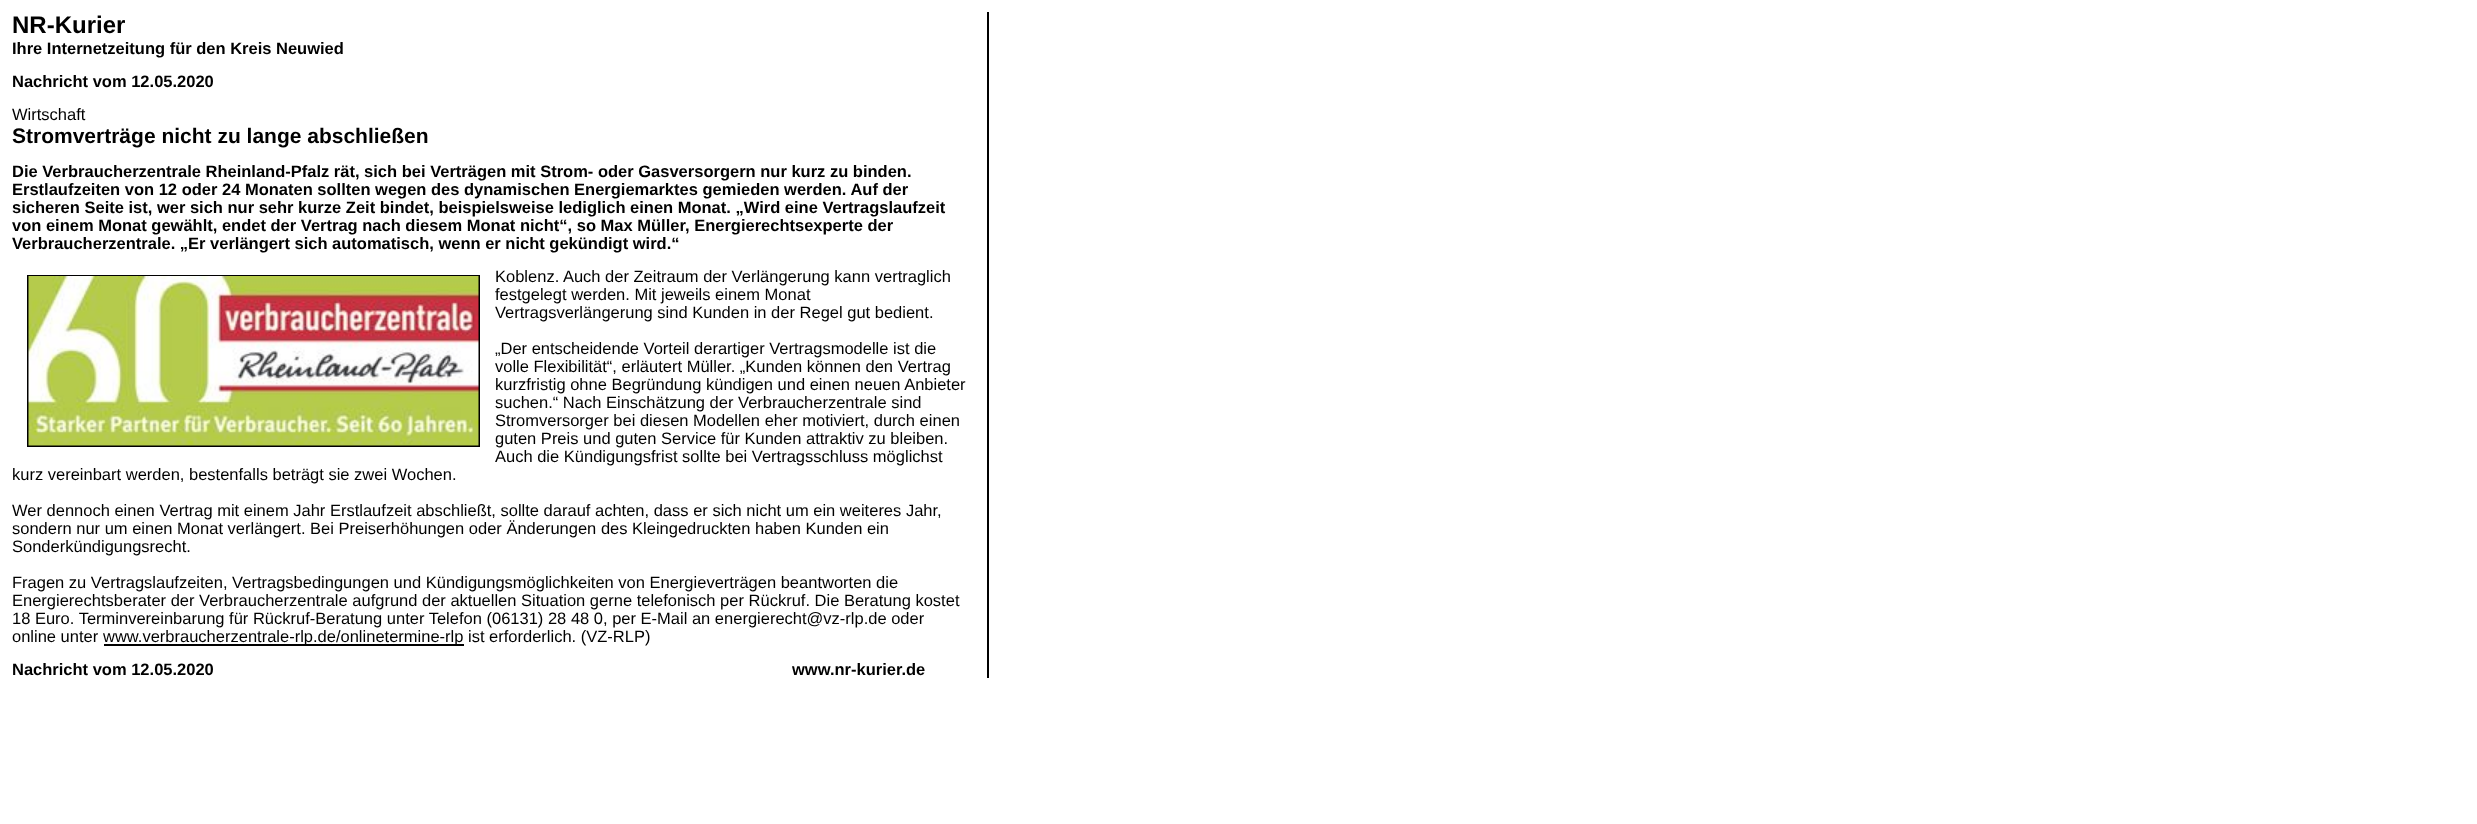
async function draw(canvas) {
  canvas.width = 2477
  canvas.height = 824
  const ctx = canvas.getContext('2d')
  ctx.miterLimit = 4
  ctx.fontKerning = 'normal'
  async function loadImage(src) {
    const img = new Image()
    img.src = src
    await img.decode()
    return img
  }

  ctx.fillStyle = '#fff'
  ctx.fillRect(0, 0, 2477, 824)
  ctx.font = 'bold 24px Liberation Sans'
  ctx.fillStyle = '#000'
  ctx.fillText('NR-Kurier', 12, 33)
  ctx.font = 'bold 16.5px Liberation Sans'
  ctx.fillText('Ihre Internetzeitung für den Kreis Neuwied', 12, 54)
  ctx.fillText('Nachricht vom 12.05.2020', 12, 87)
  ctx.font = '16.5px Liberation Sans'
  ctx.fillText('Wirtschaft', 12, 120)
  ctx.font = 'bold 21px Liberation Sans'
  ctx.fillText('Stromverträge nicht zu lange abschließen', 12, 143)
  ctx.font = 'bold 16.5px Liberation Sans'
  ctx.fillText('Die Verbraucherzentrale Rheinland-Pfalz rät, sich bei Verträgen mit Strom- oder Gasversorgern nur kurz zu binden.', 12, 177)
  ctx.fillText('Erstlaufzeiten von 12 oder 24 Monaten sollten wegen des dynamischen Energiemarktes gemieden werden. Auf der', 12, 195)
  ctx.fillText('sicheren Seite ist, wer sich nur sehr kurze Zeit bindet, beispielsweise lediglich einen Monat. „Wird eine Vertragslaufzeit', 12, 213)
  ctx.fillText('von einem Monat gewählt, endet der Vertrag nach diesem Monat nicht“, so Max Müller, Energierechtsexperte der', 12, 231)
  ctx.fillText('Verbraucherzentrale. „Er verlängert sich automatisch, wenn er nicht gekündigt wird.“', 12, 249)
  ctx.strokeStyle = '#000'
  ctx.lineWidth = 2
  ctx.strokeRect(28, 276, 451, 170)
  ctx.drawImage(await loadImage('image0.png'), 28, 276, 451, 170)
  ctx.font = '16.5px Liberation Sans'
  ctx.fillText('Koblenz. Auch der Zeitraum der Verlängerung kann vertraglich', 495, 282)
  ctx.fillText('festgelegt werden. Mit jeweils einem Monat', 495, 300)
  ctx.fillText('Vertragsverlängerung sind Kunden in der Regel gut bedient.', 495, 318)
  ctx.fillText('„Der entscheidende Vorteil derartiger Vertragsmodelle ist die', 495, 354)
  ctx.fillText('volle Flexibilität“, erläutert Müller. „Kunden können den Vertrag', 495, 372)
  ctx.fillText('kurzfristig ohne Begründung kündigen und einen neuen Anbieter', 495, 390)
  ctx.fillText('suchen.“ Nach Einschätzung der Verbraucherzentrale sind', 495, 408)
  ctx.fillText('Stromversorger bei diesen Modellen eher motiviert, durch einen', 495, 426)
  ctx.fillText('guten Preis und guten Service für Kunden attraktiv zu bleiben.', 495, 444)
  ctx.fillText('Auch die Kündigungsfrist sollte bei Vertragsschluss möglichst', 495, 462)
  ctx.fillText('kurz vereinbart werden, bestenfalls beträgt sie zwei Wochen.', 12, 480)
  ctx.fillText('Wer dennoch einen Vertrag mit einem Jahr Erstlaufzeit abschließt, sollte darauf achten, dass er sich nicht um ein weiteres Jahr,', 12, 516)
  ctx.fillText('sondern nur um einen Monat verlängert. Bei Preiserhöhungen oder Änderungen des Kleingedruckten haben Kunden ein', 12, 534)
  ctx.fillText('Sonderkündigungsrecht.', 12, 552)
  ctx.fillText('Fragen zu Vertragslaufzeiten, Vertragsbedingungen und Kündigungsmöglichkeiten von Energieverträgen beantworten die', 12, 588)
  ctx.fillText('Energierechtsberater der Verbraucherzentrale aufgrund der aktuellen Situation gerne telefonisch per Rückruf. Die Beratung kostet', 12, 606)
  ctx.fillText('18 Euro. Terminvereinbarung für Rückruf-Beratung unter Telefon (06131) 28 48 0, per E-Mail an energierecht@vz-rlp.de oder', 12, 624)
  ctx.fillText('online unter', 12, 642)
  ctx.fillRect(104, 644, 360, 2)
  ctx.fillText('www.verbraucherzentrale-rlp.de/onlinetermine-rlp ist erforderlich. (VZ-RLP)', 103, 642)
  ctx.font = 'bold 16.5px Liberation Sans'
  ctx.fillText('Nachricht vom 12.05.2020', 12, 675)
  ctx.fillText('www.nr-kurier.de', 792, 675)
  ctx.fillRect(987, 12, 2, 666)
}

draw(document.querySelector('canvas'))
